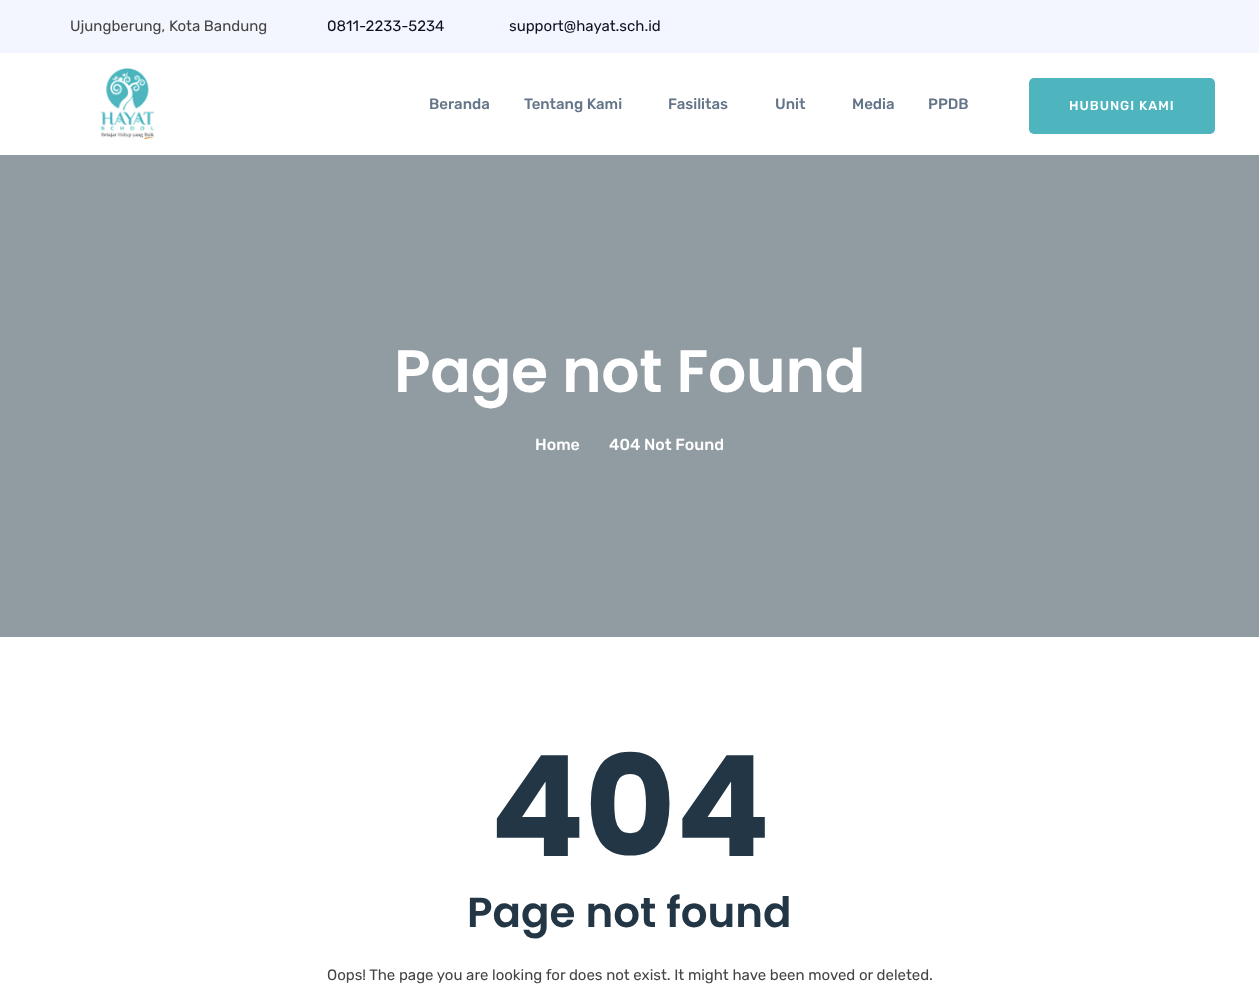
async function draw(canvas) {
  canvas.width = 1259
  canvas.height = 985
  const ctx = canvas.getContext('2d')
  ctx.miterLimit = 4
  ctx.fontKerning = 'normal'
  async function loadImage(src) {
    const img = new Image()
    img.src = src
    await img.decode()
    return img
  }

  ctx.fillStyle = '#fff'
  ctx.fillRect(0, 0, 1259, 985)
  ctx.fillStyle = '#f3f6ff'
  ctx.fillRect(0, 0, 1259, 53)
  ctx.font = '15px Rubik'
  ctx.fillStyle = '#444'
  ctx.fillText('Ujungberung, Kota Bandung', 70, 31)
  ctx.fillStyle = '#10111e'
  ctx.fillText('0811-2233-5234', 327, 31)
  ctx.fillText('support@hayat.sch.id', 509, 31)
  ctx.drawImage(await loadImage('image0.png'), 100, 68, 55, 71)
  ctx.font = '500 15px Rubik'
  ctx.fillStyle = '#647589'
  ctx.fillText('Beranda', 429, 109)
  ctx.fillText('Tentang Kami', 524, 109)
  ctx.fillText('Fasilitas', 668, 109)
  ctx.fillText('Unit', 775, 109)
  ctx.fillText('Media', 852, 109)
  ctx.fillText('PPDB', 928, 109)
  ctx.fillStyle = '#4eb5be'
  ctx.beginPath()
  ctx.roundRect(1029, 78, 186, 56, 5)
  ctx.fill()
  ctx.letterSpacing = '1px'
  ctx.font = '500 13px Rubik'
  ctx.fillStyle = '#fff'
  ctx.fillText('HUBUNGI KAMI', 1069, 110)
  ctx.fillStyle = '#919ba2'
  ctx.fillRect(0, 155, 1259, 482)
  ctx.letterSpacing = '-0.25px'
  ctx.font = '600 60px Poppins'
  ctx.fillStyle = '#fff'
  ctx.fillText('Page not Found', 394, 392)
  ctx.letterSpacing = '0px'
  ctx.font = '500 16px Rubik'
  ctx.fillText('Home', 535, 450)
  ctx.fillText('404 Not Found', 609, 450)
  ctx.letterSpacing = '-0.25px'
  ctx.font = 'bold 140px Poppins'
  ctx.fillStyle = '#223645'
  ctx.fillText('404', 490, 856)
  ctx.letterSpacing = '0px'
  ctx.font = '600 42px Poppins'
  ctx.fillText('Page not found', 467, 927)
  ctx.font = '15px Rubik'
  ctx.fillStyle = '#444'
  ctx.fillText('Oops! The page you are looking for does not exist. It might have been moved or deleted.', 327, 980)
}

draw(document.querySelector('canvas'))
